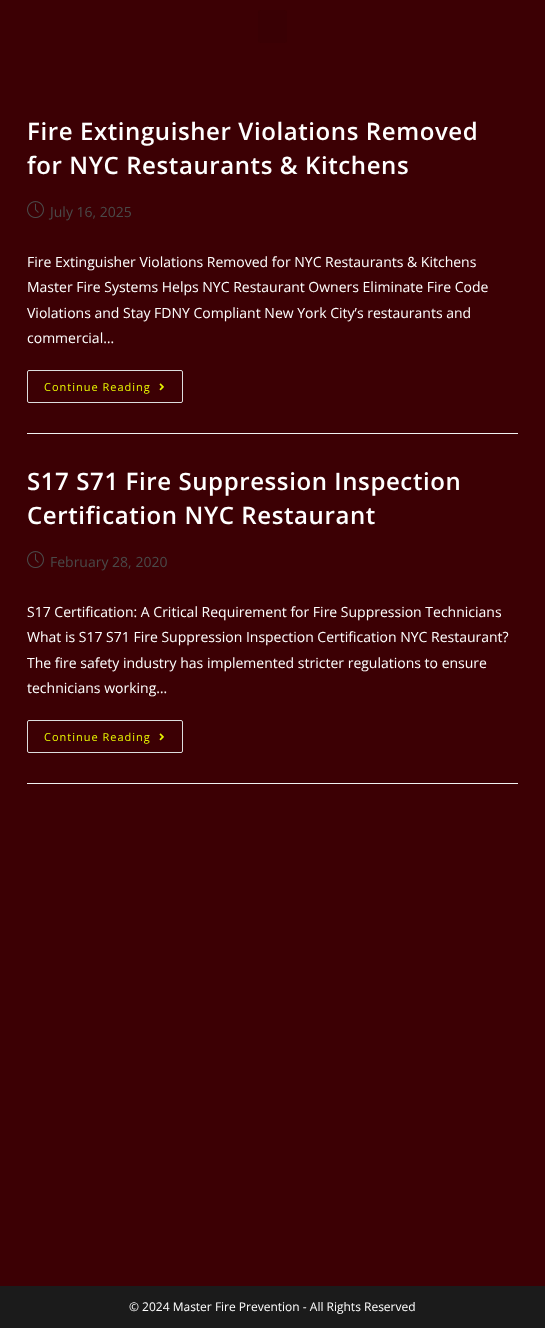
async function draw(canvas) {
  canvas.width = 545
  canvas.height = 1328
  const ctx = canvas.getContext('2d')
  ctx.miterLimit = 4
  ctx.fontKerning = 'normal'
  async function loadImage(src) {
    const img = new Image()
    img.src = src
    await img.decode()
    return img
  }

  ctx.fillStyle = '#3c0004'
  ctx.fillRect(0, 0, 545, 1328)
  ctx.fillStyle = '#390004'
  ctx.beginPath()
  ctx.roundRect(258, 10, 29, 33, 3)
  ctx.fill()
  ctx.fillStyle = '#f1f1f1'
  ctx.fillRect(27, 433, 491, 1)
  ctx.letterSpacing = '0.6px'
  ctx.font = '600 24px Open Sans'
  ctx.fillStyle = '#fff'
  ctx.fillText('Fire Extinguisher Violations Removed', 27, 140)
  ctx.fillText('for NYC Restaurants & Kitchens', 27, 174)
  ctx.drawImage(await loadImage('image0.png'), 27, 201, 17, 17)
  ctx.letterSpacing = '0px'
  ctx.font = '14px Open Sans'
  ctx.fillStyle = '#4a4a4a'
  ctx.fillText('July 16, 2025', 50, 217)
  ctx.fillStyle = '#fff'
  ctx.fillText('Fire Extinguisher Violations Removed for NYC Restaurants & Kitchens', 27, 267)
  ctx.fillText('Master Fire Systems Helps NYC Restaurant Owners Eliminate Fire Code', 27, 292)
  ctx.fillText('Violations and Stay FDNY Compliant New York City’s restaurants and', 27, 318)
  ctx.fillText('commercial…', 27, 343)
  ctx.beginPath()
  ctx.roundRect(27.5, 370.5, 155, 32, 1.5)
  ctx.strokeStyle = '#ddd'
  ctx.stroke()
  ctx.letterSpacing = '1px'
  ctx.font = '11px Open Sans'
  ctx.fillStyle = '#e8f602'
  ctx.fillText('Continue Reading', 44, 391)
  ctx.drawImage(await loadImage('image1.png'), 159, 383, 5, 8)
  ctx.fillStyle = '#f1f1f1'
  ctx.fillRect(27, 783, 491, 1)
  ctx.letterSpacing = '0.6px'
  ctx.font = '600 24px Open Sans'
  ctx.fillStyle = '#fff'
  ctx.fillText('S17 S71 Fire Suppression Inspection', 27, 490)
  ctx.fillText('Certification NYC Restaurant', 27, 524)
  ctx.drawImage(await loadImage('image0.png'), 27, 551, 17, 17)
  ctx.letterSpacing = '0px'
  ctx.font = '14px Open Sans'
  ctx.fillStyle = '#4a4a4a'
  ctx.fillText('February 28, 2020', 50, 567)
  ctx.fillStyle = '#fff'
  ctx.fillText('S17 Certification: A Critical Requirement for Fire Suppression Technicians', 27, 617)
  ctx.fillText('What is S17 S71 Fire Suppression Inspection Certification NYC Restaurant?', 27, 642)
  ctx.fillText('The fire safety industry has implemented stricter regulations to ensure', 27, 668)
  ctx.fillText('technicians working…', 27, 693)
  ctx.beginPath()
  ctx.roundRect(27.5, 720.5, 155, 32, 1.5)
  ctx.stroke()
  ctx.letterSpacing = '1px'
  ctx.font = '11px Open Sans'
  ctx.fillStyle = '#e8f602'
  ctx.fillText('Continue Reading', 44, 741)
  ctx.drawImage(await loadImage('image1.png'), 159, 733, 5, 8)
  ctx.fillStyle = '#1b1b1b'
  ctx.fillRect(0, 1286, 545, 42)
  ctx.letterSpacing = '0px'
  ctx.font = '12px Open Sans'
  ctx.fillStyle = '#fff'
  ctx.fillText('© 2024 Master Fire Prevention - All Rights Reserved', 129, 1311)
}

draw(document.querySelector('canvas'))
